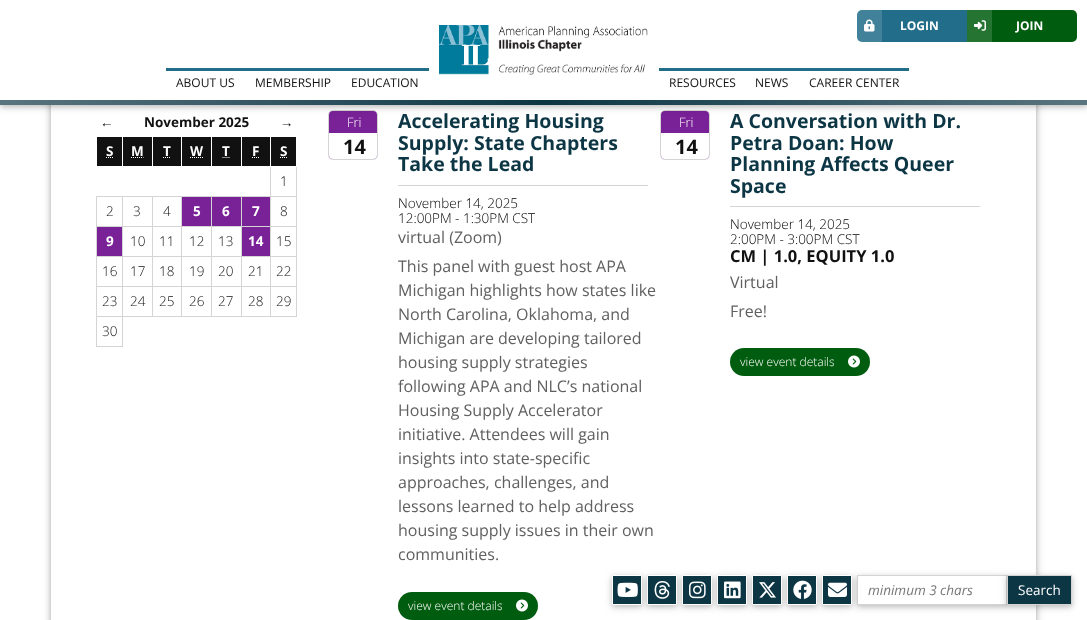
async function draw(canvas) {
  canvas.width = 1087
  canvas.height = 620
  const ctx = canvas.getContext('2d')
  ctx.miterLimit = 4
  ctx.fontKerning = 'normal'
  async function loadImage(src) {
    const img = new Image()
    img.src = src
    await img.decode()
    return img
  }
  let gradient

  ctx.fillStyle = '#fff'
  ctx.fillRect(0, 0, 1087, 620)
  ctx.fillStyle = '#0000001f'
  ctx.filter = 'blur(5px)'
  ctx.beginPath()
  ctx.roundRect(50, 35, 987, 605, 5)
  ctx.fill()
  ctx.filter = 'none'
  ctx.fillStyle = '#00000029'
  ctx.filter = 'blur(2.5px)'
  ctx.beginPath()
  ctx.roundRect(50, 35, 987, 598, 5)
  ctx.fill()
  ctx.filter = 'none'
  ctx.fillStyle = '#fff'
  ctx.fillRect(51, 105, 985, 515)
  ctx.strokeStyle = '#d4d4d4'
  ctx.strokeRect(50.5, 33.5, 986, 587)
  ctx.beginPath()
  ctx.roundRect(328.5, 110.5, 49, 49, 4.5)
  ctx.stroke()
  ctx.fillStyle = '#792197'
  ctx.beginPath()
  ctx.roundRect(329, 111, 48, 48, 4)
  ctx.fill()
  ctx.beginPath()
  ctx.roundRect(660.5, 110.5, 49, 49, 4.5)
  ctx.stroke()
  ctx.beginPath()
  ctx.roundRect(661, 111, 48, 48, 4)
  ctx.fill()
  ctx.fillStyle = '#0000001f'
  ctx.filter = 'blur(5px)'
  ctx.beginPath()
  ctx.rect(0, 2, 1087, 105)
  ctx.fill()
  ctx.filter = 'none'
  ctx.fillStyle = '#00000029'
  ctx.filter = 'blur(2.5px)'
  ctx.beginPath()
  ctx.rect(0, 2, 1087, 105)
  ctx.fill()
  ctx.filter = 'none'
  ctx.fillStyle = '#fff'
  ctx.fillRect(0, 0, 1087, 100)
  ctx.drawImage(await loadImage('image0.png'), 439, 25, 209, 50)
  ctx.fillStyle = '#226e8a'
  ctx.beginPath()
  ctx.roundRect(857, 10, 110, 32, [5, 0, 0, 5])
  ctx.fill()
  ctx.fillStyle = '#ffffff24'
  ctx.fillRect(857, 10, 25, 32)
  ctx.drawImage(await loadImage('image1.png'), 864, 19, 11, 13)
  ctx.font = 'bold 12px Open Sans'
  ctx.fillStyle = '#fff'
  ctx.fillText('LOGIN', 900, 30)
  ctx.fillStyle = '#005c0e'
  ctx.beginPath()
  ctx.roundRect(967, 10, 110, 32, [0, 5, 5, 0])
  ctx.fill()
  ctx.fillStyle = '#257431'
  ctx.fillRect(967, 10, 25, 32)
  ctx.drawImage(await loadImage('image2.png'), 974, 20, 12, 11)
  ctx.fillStyle = '#fff'
  ctx.fillText('JOIN', 1016, 30)
  ctx.fillStyle = '#226e8a'
  ctx.fillRect(166, 68, 263, 3)
  ctx.font = '12px Open Sans'
  ctx.fillStyle = '#111'
  ctx.fillText('ABOUT US', 176, 87)
  ctx.fillText('MEMBERSHIP', 255, 87)
  ctx.fillText('EDUCATION', 351, 87)
  ctx.fillStyle = '#226e8a'
  ctx.fillRect(659, 68, 250, 3)
  ctx.fillStyle = '#111'
  ctx.fillText('RESOURCES', 669, 87)
  ctx.fillText('NEWS', 755, 87)
  ctx.fillText('CAREER CENTER', 809, 87)
  gradient = ctx.createLinearGradient(0, 103, 1087, 102)
  gradient.addColorStop(0, '#59757f')
  gradient.addColorStop(0.5, '#0d3645')
  gradient.addColorStop(1, '#59757f')
  ctx.fillStyle = gradient
  ctx.fillRect(0, 100, 1087, 5)
  ctx.font = 'bold 13.5px Liberation Sans'
  ctx.fillStyle = '#111'
  ctx.fillText('←', 100, 127)
  ctx.font = 'bold 13.5px Open Sans'
  ctx.fillText('November 2025', 144, 127)
  ctx.font = 'bold 13.5px Liberation Sans'
  ctx.fillText('→', 280, 127)
  ctx.fillRect(97, 137, 25, 29)
  ctx.font = 'bold 13.5px Open Sans'
  ctx.fillStyle = '#fff'
  ctx.fillText('S', 106, 156)
  ctx.beginPath()
  ctx.moveTo(106, 157.5)
  ctx.lineTo(113, 157.5)
  ctx.strokeStyle = '#fff'
  ctx.setLineDash([1, 1])
  ctx.stroke()
  ctx.fillStyle = '#111'
  ctx.fillRect(123, 137, 29, 29)
  ctx.fillStyle = '#fff'
  ctx.fillText('M', 131, 156)
  ctx.beginPath()
  ctx.moveTo(131, 157.5)
  ctx.lineTo(143.5, 157.5)
  ctx.stroke()
  ctx.fillStyle = '#111'
  ctx.fillRect(153, 137, 28, 29)
  ctx.fillStyle = '#fff'
  ctx.fillText('T', 163, 156)
  ctx.beginPath()
  ctx.moveTo(163, 157.5)
  ctx.lineTo(171, 157.5)
  ctx.stroke()
  ctx.fillStyle = '#111'
  ctx.fillRect(182, 137, 29, 29)
  ctx.fillStyle = '#fff'
  ctx.fillText('W', 190, 156)
  ctx.beginPath()
  ctx.moveTo(190, 157.5)
  ctx.lineTo(203, 157.5)
  ctx.stroke()
  ctx.fillStyle = '#111'
  ctx.fillRect(212, 137, 29, 29)
  ctx.fillStyle = '#fff'
  ctx.fillText('T', 222, 156)
  ctx.beginPath()
  ctx.moveTo(222.5, 157.5)
  ctx.lineTo(230, 157.5)
  ctx.stroke()
  ctx.fillStyle = '#111'
  ctx.fillRect(242, 137, 28, 29)
  ctx.fillStyle = '#fff'
  ctx.fillText('F', 252, 156)
  ctx.beginPath()
  ctx.moveTo(252, 157.5)
  ctx.lineTo(259.5, 157.5)
  ctx.stroke()
  ctx.fillStyle = '#111'
  ctx.fillRect(271, 137, 25, 29)
  ctx.fillStyle = '#d4d4d4'
  ctx.fillRect(270, 196, 27, 1)
  ctx.fillRect(270, 226, 27, 1)
  ctx.fillRect(270, 256, 27, 1)
  ctx.fillRect(270, 286, 27, 1)
  ctx.fillRect(296, 286, 1, 31)
  ctx.fillRect(296, 256, 1, 31)
  ctx.fillRect(296, 226, 1, 31)
  ctx.fillRect(296, 166, 1, 61)
  ctx.fillStyle = '#fff'
  ctx.fillRect(296, 166, 1, 1)
  ctx.fillStyle = '#d4d4d4'
  ctx.fillRect(270, 316, 27, 1)
  ctx.fillRect(270, 286, 1, 31)
  ctx.fillRect(241, 286, 30, 1)
  ctx.fillRect(270, 256, 1, 31)
  ctx.fillRect(241, 256, 30, 1)
  ctx.fillRect(270, 226, 1, 31)
  ctx.fillRect(241, 226, 30, 1)
  ctx.fillRect(270, 196, 1, 31)
  ctx.fillRect(241, 196, 30, 1)
  ctx.fillRect(270, 166, 1, 31)
  ctx.fillStyle = '#fff'
  ctx.fillRect(270, 166, 1, 1)
  ctx.fillText('S', 280, 156)
  ctx.beginPath()
  ctx.moveTo(280, 157.5)
  ctx.lineTo(287.5, 157.5)
  ctx.stroke()
  ctx.font = '300 13.5px Open Sans'
  ctx.fillStyle = '#111'
  ctx.fillText('1', 280, 186)
  ctx.fillStyle = '#d4d4d4'
  ctx.fillRect(241, 316, 30, 1)
  ctx.fillRect(241, 286, 1, 31)
  ctx.fillRect(211, 286, 31, 1)
  ctx.fillRect(241, 256, 1, 31)
  ctx.fillRect(211, 256, 31, 1)
  ctx.fillRect(241, 226, 1, 31)
  ctx.fillRect(211, 226, 31, 1)
  ctx.fillRect(241, 196, 1, 31)
  ctx.fillRect(211, 196, 31, 1)
  ctx.fillRect(211, 316, 31, 1)
  ctx.fillRect(211, 286, 1, 31)
  ctx.fillRect(181, 286, 31, 1)
  ctx.fillRect(211, 256, 1, 31)
  ctx.fillRect(181, 256, 31, 1)
  ctx.fillRect(211, 226, 1, 31)
  ctx.fillRect(181, 226, 31, 1)
  ctx.fillRect(211, 196, 1, 31)
  ctx.fillRect(181, 196, 31, 1)
  ctx.fillRect(181, 316, 31, 1)
  ctx.fillRect(181, 286, 1, 31)
  ctx.fillRect(152, 286, 30, 1)
  ctx.fillRect(181, 256, 1, 31)
  ctx.fillRect(152, 256, 30, 1)
  ctx.fillRect(181, 226, 1, 31)
  ctx.fillRect(152, 226, 30, 1)
  ctx.fillRect(181, 196, 1, 31)
  ctx.fillRect(152, 196, 30, 1)
  ctx.fillRect(152, 316, 30, 1)
  ctx.fillRect(152, 286, 1, 31)
  ctx.fillRect(122, 286, 31, 1)
  ctx.fillRect(152, 256, 1, 31)
  ctx.fillRect(122, 256, 31, 1)
  ctx.fillRect(152, 226, 1, 31)
  ctx.fillRect(122, 226, 31, 1)
  ctx.fillRect(152, 196, 1, 31)
  ctx.fillRect(122, 196, 31, 1)
  ctx.fillRect(96, 316, 27, 1)
  ctx.fillRect(122, 316, 1, 31)
  ctx.fillRect(122, 316, 31, 1)
  ctx.fillRect(122, 286, 1, 31)
  ctx.fillRect(96, 286, 27, 1)
  ctx.fillRect(122, 256, 1, 31)
  ctx.fillRect(96, 256, 27, 1)
  ctx.fillRect(122, 226, 1, 31)
  ctx.fillRect(96, 226, 27, 1)
  ctx.fillRect(122, 196, 1, 31)
  ctx.fillRect(96, 196, 27, 1)
  ctx.fillRect(96, 346, 27, 1)
  ctx.fillRect(96, 316, 1, 31)
  ctx.fillRect(96, 286, 1, 31)
  ctx.fillRect(96, 256, 1, 31)
  ctx.fillRect(96, 226, 1, 31)
  ctx.fillRect(96, 196, 1, 31)
  ctx.fillStyle = '#111'
  ctx.fillText('2', 106, 216)
  ctx.fillText('3', 133, 216)
  ctx.fillText('4', 163, 216)
  ctx.fillStyle = '#792197'
  ctx.fillRect(182, 197, 29, 29)
  ctx.font = 'bold 13.5px Open Sans'
  ctx.fillStyle = '#fff'
  ctx.fillText('5', 193, 216)
  ctx.fillStyle = '#792197'
  ctx.fillRect(212, 197, 29, 29)
  ctx.fillStyle = '#fff'
  ctx.fillText('6', 222, 216)
  ctx.fillStyle = '#792197'
  ctx.fillRect(242, 197, 28, 29)
  ctx.fillStyle = '#fff'
  ctx.fillText('7', 252, 216)
  ctx.font = '300 13.5px Open Sans'
  ctx.fillStyle = '#111'
  ctx.fillText('8', 280, 216)
  ctx.fillStyle = '#792197'
  ctx.fillRect(97, 227, 25, 29)
  ctx.font = 'bold 13.5px Open Sans'
  ctx.fillStyle = '#fff'
  ctx.fillText('9', 106, 246)
  ctx.font = '300 13.5px Open Sans'
  ctx.fillStyle = '#111'
  ctx.fillText('10', 130, 246)
  ctx.fillText('11', 159, 246)
  ctx.fillText('12', 189, 246)
  ctx.fillText('13', 218, 246)
  ctx.fillStyle = '#792197'
  ctx.fillRect(242, 227, 28, 29)
  ctx.font = 'bold 13.5px Open Sans'
  ctx.fillStyle = '#fff'
  ctx.fillText('14', 248, 246)
  ctx.font = '300 13.5px Open Sans'
  ctx.fillStyle = '#111'
  ctx.fillText('15', 276, 246)
  ctx.fillText('16', 102, 276)
  ctx.fillText('17', 130, 276)
  ctx.fillText('18', 159, 276)
  ctx.fillText('19', 189, 276)
  ctx.fillText('20', 218, 276)
  ctx.fillText('21', 248, 276)
  ctx.fillText('22', 276, 276)
  ctx.fillText('23', 102, 306)
  ctx.fillText('24', 130, 306)
  ctx.fillText('25', 159, 306)
  ctx.fillText('26', 189, 306)
  ctx.fillText('27', 218, 306)
  ctx.fillText('28', 248, 306)
  ctx.fillText('29', 276, 306)
  ctx.fillText('30', 102, 336)
  ctx.font = '300 13px Open Sans'
  ctx.fillStyle = '#fff'
  ctx.fillText('Fri', 347, 127)
  ctx.beginPath()
  ctx.roundRect(329, 133, 48, 26, [0, 0, 4, 4])
  ctx.fill()
  ctx.font = 'bold 20px Open Sans'
  ctx.fillStyle = '#111'
  ctx.fillText('14', 343, 154)
  ctx.fillStyle = '#d4d4d4'
  ctx.fillRect(398, 185, 250, 1)
  ctx.font = 'bold 19.5px Open Sans'
  ctx.fillStyle = '#0d3645'
  ctx.fillText('Accelerating Housing', 398, 128)
  ctx.fillText('Supply: State Chapters', 398, 150)
  ctx.fillText('Take the Lead', 398, 171)
  ctx.font = '300 13.5px Open Sans'
  ctx.fillStyle = '#000'
  ctx.fillText('November 14, 2025', 398, 208)
  ctx.fillText('12:00PM - 1:30PM CST', 398, 223)
  ctx.font = '16px Open Sans'
  ctx.fillStyle = '#606060'
  ctx.fillText('virtual (Zoom)', 398, 243)
  ctx.fillText('This panel with guest host APA', 398, 272)
  ctx.fillText('Michigan highlights how states like', 398, 296)
  ctx.fillText('North Carolina, Oklahoma, and', 398, 320)
  ctx.fillText('Michigan are developing tailored', 398, 344)
  ctx.fillText('housing supply strategies', 398, 368)
  ctx.fillText('following APA and NLC’s national', 398, 392)
  ctx.fillText('Housing Supply Accelerator', 398, 416)
  ctx.fillText('initiative. Attendees will gain', 398, 440)
  ctx.fillText('insights into state-specific', 398, 464)
  ctx.fillText('approaches, challenges, and', 398, 488)
  ctx.fillText('lessons learned to help address', 398, 512)
  ctx.fillText('housing supply issues in their own', 398, 536)
  ctx.fillText('communities.', 398, 560)
  ctx.fillStyle = '#005c0e'
  ctx.beginPath()
  ctx.roundRect(398, 592, 140, 28, 14)
  ctx.fill()
  ctx.font = '300 12px Open Sans'
  ctx.fillStyle = '#fff'
  ctx.fillText('view event details', 408, 610)
  ctx.drawImage(await loadImage('image3.png'), 516, 599, 12, 13)
  ctx.font = '300 13px Open Sans'
  ctx.fillText('Fri', 679, 127)
  ctx.beginPath()
  ctx.roundRect(661, 133, 48, 26, [0, 0, 4, 4])
  ctx.fill()
  ctx.font = 'bold 20px Open Sans'
  ctx.fillStyle = '#111'
  ctx.fillText('14', 675, 154)
  ctx.fillStyle = '#d4d4d4'
  ctx.fillRect(730, 206, 250, 1)
  ctx.font = 'bold 19.5px Open Sans'
  ctx.fillStyle = '#0d3645'
  ctx.fillText('A Conversation with Dr.', 730, 128)
  ctx.fillText('Petra Doan: How', 730, 150)
  ctx.fillText('Planning Affects Queer', 730, 171)
  ctx.fillText('Space', 730, 193)
  ctx.font = '300 13.5px Open Sans'
  ctx.fillStyle = '#000'
  ctx.fillText('November 14, 2025', 730, 229)
  ctx.fillText('2:00PM - 3:00PM CST', 730, 244)
  ctx.font = 'bold 16.5px Open Sans'
  ctx.fillStyle = '#111'
  ctx.fillText('CM | 1.0, EQUITY 1.0', 730, 262)
  ctx.font = '16px Open Sans'
  ctx.fillStyle = '#606060'
  ctx.fillText('Virtual', 730, 288)
  ctx.fillText('Free!', 730, 317)
  ctx.fillStyle = '#005c0e'
  ctx.beginPath()
  ctx.roundRect(730, 348, 140, 28, 14)
  ctx.fill()
  ctx.font = '300 12px Open Sans'
  ctx.fillStyle = '#fff'
  ctx.fillText('view event details', 740, 366)
  ctx.drawImage(await loadImage('image3.png'), 848, 355, 12, 13)
  ctx.save()
  ctx.beginPath()
  ctx.moveTo(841, 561)
  ctx.lineTo(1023, 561)
  ctx.lineTo(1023, 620)
  ctx.lineTo(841, 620)
  ctx.closePath()
  ctx.moveTo(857, 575)
  ctx.lineTo(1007, 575)
  ctx.lineTo(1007, 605)
  ctx.lineTo(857, 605)
  ctx.closePath()
  ctx.clip('evenodd')
  ctx.fillStyle = '#0000001f'
  ctx.filter = 'blur(5px)'
  ctx.beginPath()
  ctx.rect(857, 577, 150, 30)
  ctx.fill()
  ctx.filter = 'none'
  ctx.restore()
  ctx.save()
  ctx.beginPath()
  ctx.moveTo(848, 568)
  ctx.lineTo(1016, 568)
  ctx.lineTo(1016, 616)
  ctx.lineTo(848, 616)
  ctx.closePath()
  ctx.moveTo(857, 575)
  ctx.lineTo(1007, 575)
  ctx.lineTo(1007, 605)
  ctx.lineTo(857, 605)
  ctx.closePath()
  ctx.clip('evenodd')
  ctx.fillStyle = '#00000029'
  ctx.filter = 'blur(2.5px)'
  ctx.beginPath()
  ctx.rect(857, 577, 150, 30)
  ctx.fill()
  ctx.filter = 'none'
  ctx.restore()
  ctx.strokeStyle = '#d4d4d4'
  ctx.setLineDash([])
  ctx.strokeRect(857.5, 575.5, 149, 29)
  ctx.fillStyle = '#0000001f'
  ctx.filter = 'blur(5px)'
  ctx.beginPath()
  ctx.rect(822, 577, 30, 30)
  ctx.fill()
  ctx.filter = 'none'
  ctx.fillStyle = '#00000029'
  ctx.filter = 'blur(2.5px)'
  ctx.beginPath()
  ctx.rect(822, 577, 30, 30)
  ctx.fill()
  ctx.filter = 'none'
  ctx.fillStyle = '#0d3645'
  ctx.beginPath()
  ctx.rect(822.5, 575.5, 29, 29)
  ctx.fill()
  ctx.strokeStyle = '#fff'
  ctx.stroke()
  ctx.drawImage(await loadImage('image10.png'), 828, 582, 19, 15)
  ctx.fillStyle = '#0000001f'
  ctx.filter = 'blur(5px)'
  ctx.beginPath()
  ctx.rect(787, 577, 30, 30)
  ctx.fill()
  ctx.filter = 'none'
  ctx.fillStyle = '#00000029'
  ctx.filter = 'blur(2.5px)'
  ctx.beginPath()
  ctx.rect(787, 577, 30, 30)
  ctx.fill()
  ctx.filter = 'none'
  ctx.fillStyle = '#0d3645'
  ctx.beginPath()
  ctx.rect(787.5, 575.5, 29, 29)
  ctx.fill()
  ctx.stroke()
  ctx.drawImage(await loadImage('image9.png'), 793, 580, 19, 19)
  ctx.fillStyle = '#0000001f'
  ctx.filter = 'blur(5px)'
  ctx.beginPath()
  ctx.rect(752, 577, 30, 30)
  ctx.fill()
  ctx.filter = 'none'
  ctx.fillStyle = '#00000029'
  ctx.filter = 'blur(2.5px)'
  ctx.beginPath()
  ctx.rect(752, 577, 30, 30)
  ctx.fill()
  ctx.filter = 'none'
  ctx.fillStyle = '#0d3645'
  ctx.beginPath()
  ctx.rect(752.5, 575.5, 29, 29)
  ctx.fill()
  ctx.stroke()
  ctx.drawImage(await loadImage('image8.png'), 759, 582, 17, 16)
  ctx.fillStyle = '#0000001f'
  ctx.filter = 'blur(5px)'
  ctx.beginPath()
  ctx.rect(717, 577, 30, 30)
  ctx.fill()
  ctx.filter = 'none'
  ctx.fillStyle = '#00000029'
  ctx.filter = 'blur(2.5px)'
  ctx.beginPath()
  ctx.rect(717, 577, 30, 30)
  ctx.fill()
  ctx.filter = 'none'
  ctx.fillStyle = '#0d3645'
  ctx.beginPath()
  ctx.rect(717.5, 575.5, 29, 29)
  ctx.fill()
  ctx.stroke()
  ctx.drawImage(await loadImage('image7.png'), 724, 581, 17, 18)
  ctx.fillStyle = '#0000001f'
  ctx.filter = 'blur(5px)'
  ctx.beginPath()
  ctx.rect(682, 577, 30, 30)
  ctx.fill()
  ctx.filter = 'none'
  ctx.fillStyle = '#00000029'
  ctx.filter = 'blur(2.5px)'
  ctx.beginPath()
  ctx.rect(682, 577, 30, 30)
  ctx.fill()
  ctx.filter = 'none'
  ctx.fillStyle = '#0d3645'
  ctx.beginPath()
  ctx.rect(682.5, 575.5, 29, 29)
  ctx.fill()
  ctx.stroke()
  ctx.drawImage(await loadImage('image6.png'), 689, 581, 17, 18)
  ctx.fillStyle = '#0000001f'
  ctx.filter = 'blur(5px)'
  ctx.beginPath()
  ctx.rect(647, 577, 30, 30)
  ctx.fill()
  ctx.filter = 'none'
  ctx.fillStyle = '#00000029'
  ctx.filter = 'blur(2.5px)'
  ctx.beginPath()
  ctx.rect(647, 577, 30, 30)
  ctx.fill()
  ctx.filter = 'none'
  ctx.fillStyle = '#0d3645'
  ctx.beginPath()
  ctx.rect(647.5, 575.5, 29, 29)
  ctx.fill()
  ctx.stroke()
  ctx.drawImage(await loadImage('image5.png'), 654, 581, 16, 18)
  ctx.fillStyle = '#0000001f'
  ctx.filter = 'blur(5px)'
  ctx.beginPath()
  ctx.rect(612, 577, 30, 30)
  ctx.fill()
  ctx.filter = 'none'
  ctx.fillStyle = '#00000029'
  ctx.filter = 'blur(2.5px)'
  ctx.beginPath()
  ctx.rect(612, 577, 30, 30)
  ctx.fill()
  ctx.filter = 'none'
  ctx.fillStyle = '#0d3645'
  ctx.beginPath()
  ctx.rect(612.5, 575.5, 29, 29)
  ctx.fill()
  ctx.stroke()
  ctx.drawImage(await loadImage('image4.png'), 617, 582, 21, 15)
  ctx.font = 'italic 13.5px Open Sans'
  ctx.fillStyle = '#777'
  ctx.fillText('minimum 3 chars', 868, 595)
  ctx.fillStyle = '#0000001f'
  ctx.filter = 'blur(5px)'
  ctx.beginPath()
  ctx.rect(1007, 577, 65, 30)
  ctx.fill()
  ctx.filter = 'none'
  ctx.fillStyle = '#00000029'
  ctx.filter = 'blur(2.5px)'
  ctx.beginPath()
  ctx.rect(1007, 577, 65, 30)
  ctx.fill()
  ctx.filter = 'none'
  ctx.fillStyle = '#0d3645'
  ctx.beginPath()
  ctx.rect(1007.5, 575.5, 64, 29)
  ctx.fill()
  ctx.strokeStyle = '#d4d4d4'
  ctx.stroke()
  ctx.font = '13.5px Open Sans'
  ctx.fillStyle = '#fff'
  ctx.fillText('Search', 1018, 595)
}

draw(document.querySelector('canvas'))
